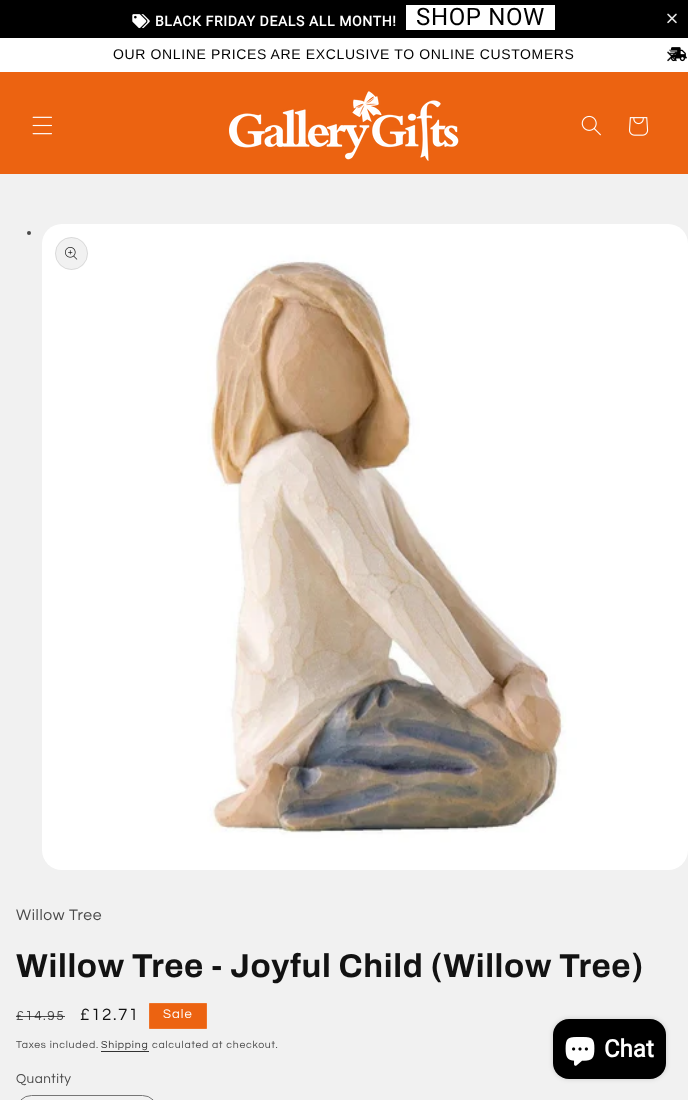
async function draw(canvas) {
  canvas.width = 688
  canvas.height = 1100
  const ctx = canvas.getContext('2d')
  ctx.miterLimit = 4
  ctx.fontKerning = 'normal'
  async function loadImage(src) {
    const img = new Image()
    img.src = src
    await img.decode()
    return img
  }

  ctx.fillStyle = '#f1f1f1'
  ctx.fillRect(0, 0, 688, 1100)
  ctx.fillStyle = '#000'
  ctx.fillRect(0, 0, 688, 38)
  ctx.drawImage(await loadImage('image0.png'), 132, 14, 18, 15)
  ctx.letterSpacing = '0.63px'
  ctx.font = 'bold 14px Roboto'
  ctx.fillStyle = '#fff'
  ctx.fillText('BLACK FRIDAY DEALS ALL MONTH!', 155, 26)
  ctx.fillRect(406, 5, 149, 25)
  ctx.font = '24px Roboto'
  ctx.fillStyle = '#000'
  ctx.fillText('SHOP NOW', 416, 25)
  ctx.drawImage(await loadImage('image1.png'), 667, 13, 10, 11)
  ctx.fillStyle = '#fff'
  ctx.fillRect(0, 38, 688, 34)
  ctx.font = '14px Liberation Sans'
  ctx.fillStyle = '#000'
  ctx.fillText('OUR ONLINE PRICES ARE EXCLUSIVE TO ONLINE CUSTOMERS', 113, 59)
  ctx.drawImage(await loadImage('image2.png'), 669, 47, 18, 15)
  ctx.drawImage(await loadImage('image3.png'), 667, 51, 10, 11)
  ctx.fillStyle = '#ec6311'
  ctx.fillRect(0, 72, 688, 102)
  ctx.drawImage(await loadImage('image4.png'), 32, 116, 20, 19)
  ctx.drawImage(await loadImage('image5.png'), 229, 91, 230, 70)
  ctx.drawImage(await loadImage('image6.png'), 581, 115, 20, 21)
  ctx.drawImage(await loadImage('image7.png'), 629, 117, 20, 19)
  ctx.fillStyle = '#4a4a4a'
  ctx.beginPath()
  ctx.arc(29, 233, 2, 0, 2 * Math.PI)
  ctx.fill()
  ctx.drawImage(await loadImage('image8.png'), 42, 224, 646, 646)
  ctx.fillStyle = '#f1f1f1'
  ctx.beginPath()
  ctx.arc(71.5, 253.5, 16.5, 0, 2 * Math.PI)
  ctx.fill()
  ctx.beginPath()
  ctx.arc(71.5, 253.5, 16, 0, 2 * Math.PI)
  ctx.strokeStyle = '#1212121a'
  ctx.stroke()
  ctx.drawImage(await loadImage('image9.png'), 65, 247, 13, 13)
  ctx.font = '15.75px Questrial'
  ctx.fillStyle = '#4a4a4a'
  ctx.fillText('Willow Tree', 16, 920)
  ctx.letterSpacing = '0.65px'
  ctx.font = 'bold 33px Archivo'
  ctx.fillStyle = '#121212'
  ctx.fillText('Willow Tree - Joyful Child (Willow Tree)', 16, 977)
  ctx.letterSpacing = '1.5px'
  ctx.font = '13.5px Questrial'
  ctx.fillStyle = '#4a4a4a'
  ctx.fillText('£14.95', 16, 1020)
  ctx.fillStyle = '#121212bf'
  ctx.fillRect(16, 1016, 49, 1)
  ctx.font = '17px Questrial'
  ctx.fillStyle = '#121212'
  ctx.fillText('£12.71', 80, 1020)
  ctx.fillStyle = '#ec6311'
  ctx.beginPath()
  ctx.rect(149.5, 1003.5, 57, 25)
  ctx.fill()
  ctx.strokeStyle = '#ee7329'
  ctx.stroke()
  ctx.letterSpacing = '1px'
  ctx.font = '13px Questrial'
  ctx.fillStyle = '#fff'
  ctx.fillText('Sale', 163, 1018)
  ctx.letterSpacing = '0.75px'
  ctx.font = '10.5px Questrial'
  ctx.fillStyle = '#4a4a4a'
  ctx.fillText('Taxes included.', 16, 1048)
  ctx.fillStyle = '#333'
  ctx.fillText('Shipping', 101, 1048)
  ctx.fillRect(101, 1051, 48, 1)
  ctx.fillStyle = '#4a4a4a'
  ctx.fillText('calculated at checkout.', 152, 1048)
  ctx.letterSpacing = '0.5px'
  ctx.font = '13.5px Questrial'
  ctx.fillText('Quantity', 16, 1083)
  ctx.beginPath()
  ctx.roundRect(16.5, 1095.5, 141, 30, 24.5)
  ctx.strokeStyle = '#767676'
  ctx.stroke()
  ctx.fillStyle = '#00000026'
  ctx.filter = 'blur(2.5px)'
  ctx.beginPath()
  ctx.roundRect(553, 1019, 113, 60, 16)
  ctx.fill()
  ctx.filter = 'none'
  ctx.fillStyle = '#000'
  ctx.beginPath()
  ctx.roundRect(553, 1019, 113, 60, 16)
  ctx.fill()
  ctx.drawImage(await loadImage('image10.png'), 565, 1037, 30, 29)
  ctx.letterSpacing = '0px'
  ctx.font = 'bold 24px Roboto'
  ctx.fillStyle = '#fff'
  ctx.fillText('Chat', 604, 1057)
}

draw(document.querySelector('canvas'))
